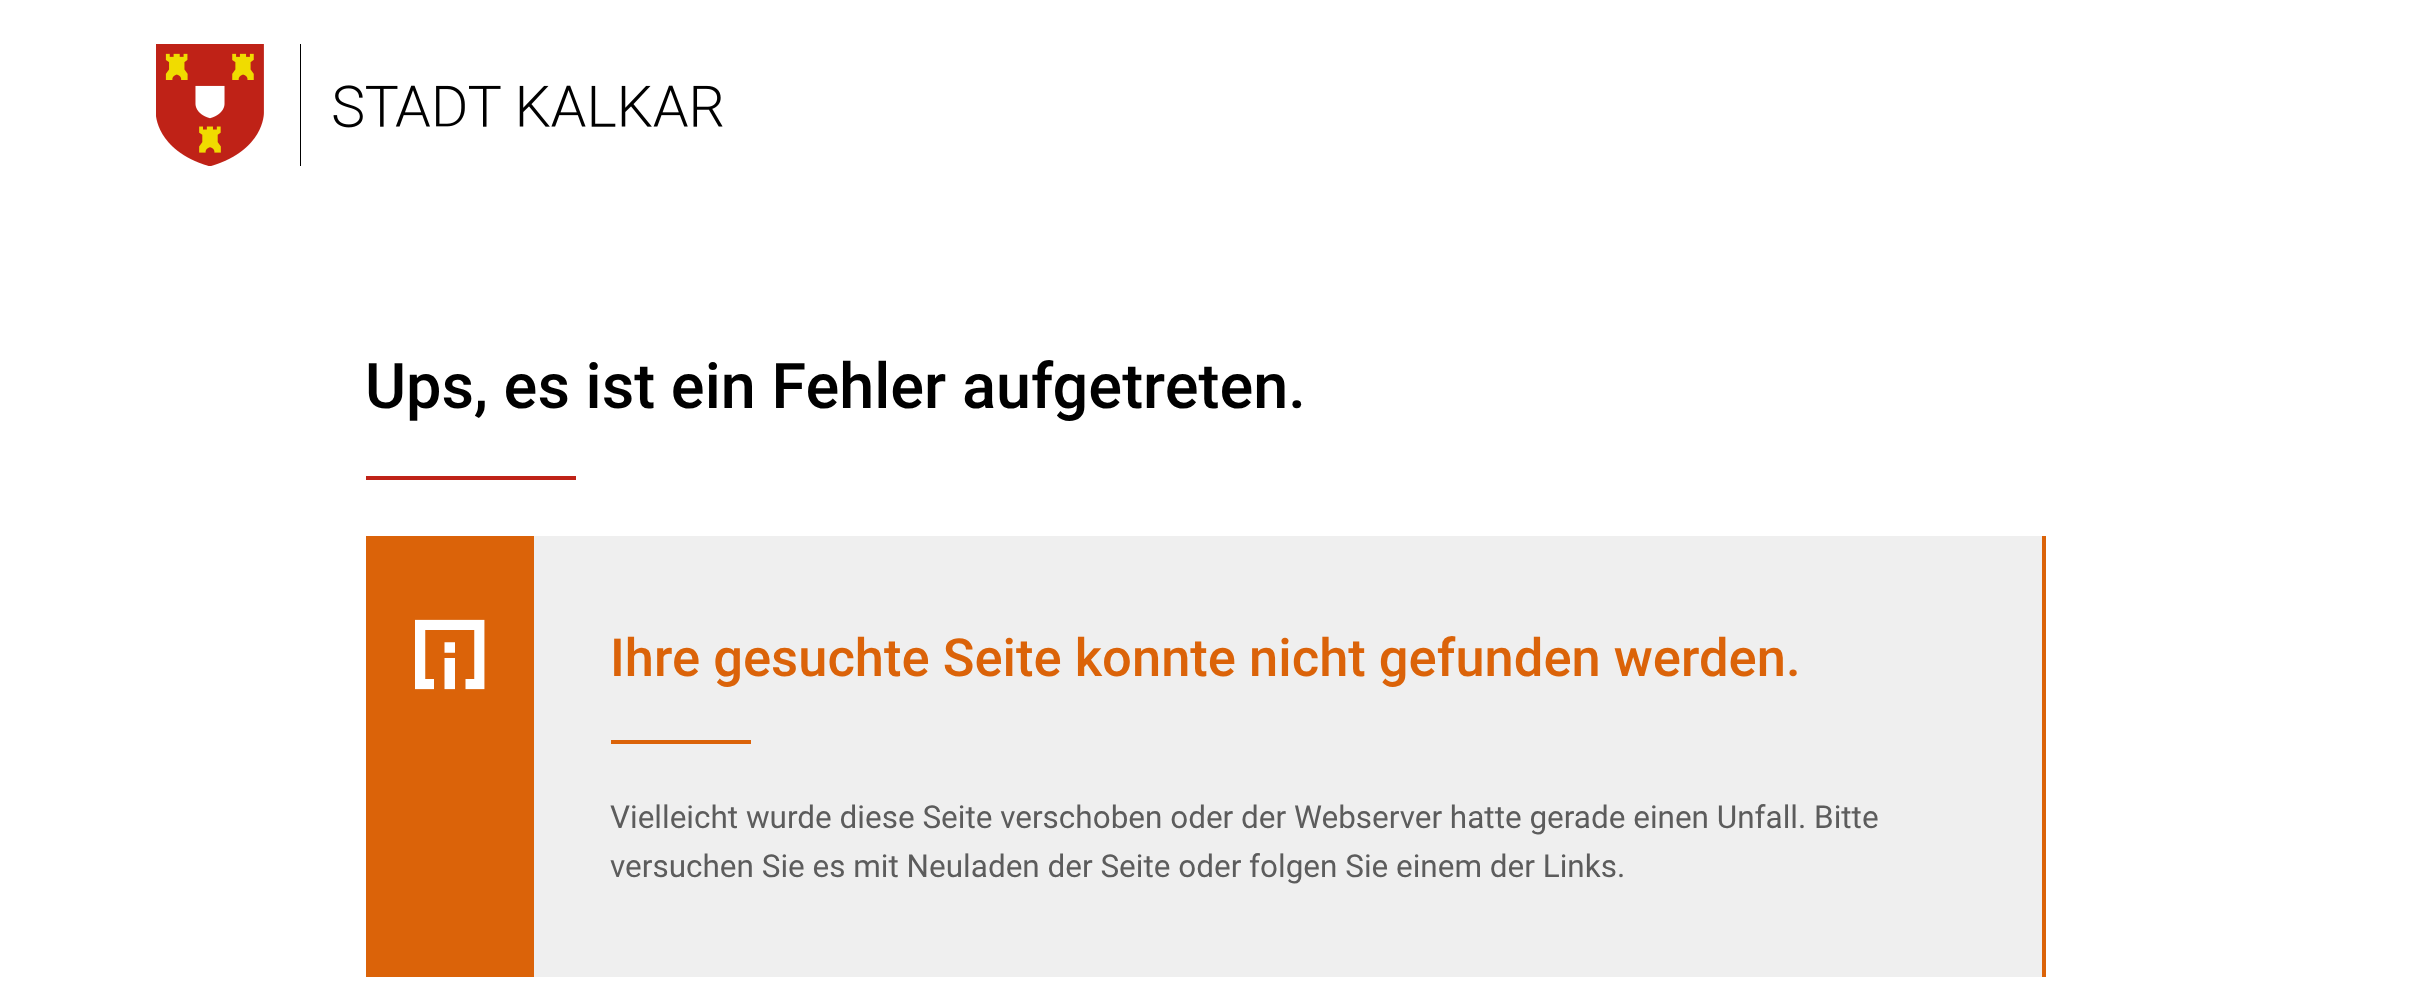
async function draw(canvas) {
  canvas.width = 2409
  canvas.height = 990
  const ctx = canvas.getContext('2d')
  ctx.miterLimit = 4
  ctx.fontKerning = 'normal'
  async function loadImage(src) {
    const img = new Image()
    img.src = src
    await img.decode()
    return img
  }

  ctx.fillStyle = '#fff'
  ctx.fillRect(0, 0, 2409, 990)
  ctx.drawImage(await loadImage('image0.png'), 156, 44, 567, 122)
  ctx.font = '500 63px Roboto'
  ctx.fillStyle = '#000'
  ctx.fillText('Ups, es ist ein Fehler aufgetreten.', 365, 408)
  ctx.fillStyle = '#bf2217'
  ctx.fillRect(366, 476, 210, 4)
  ctx.fillStyle = '#efefef'
  ctx.fillRect(534, 536, 1508, 441)
  ctx.fillStyle = '#db6309'
  ctx.fillRect(2042, 536, 4, 441)
  ctx.fillRect(366, 536, 168, 441)
  ctx.drawImage(await loadImage('image1.png'), 415, 619, 70, 71)
  ctx.font = '500 52.5px Roboto'
  ctx.fillText('Ihre gesuchte Seite konnte nicht gefunden werden.', 610, 676)
  ctx.fillRect(611, 740, 140, 4)
  ctx.font = '31.5px Roboto'
  ctx.fillStyle = '#5c5c5c'
  ctx.fillText('Vielleicht wurde diese Seite verschoben oder der Webserver hatte gerade einen Unfall. Bitte', 610, 828)
  ctx.fillText('versuchen Sie es mit Neuladen der Seite oder folgen Sie einem der Links.', 610, 877)
}

draw(document.querySelector('canvas'))
